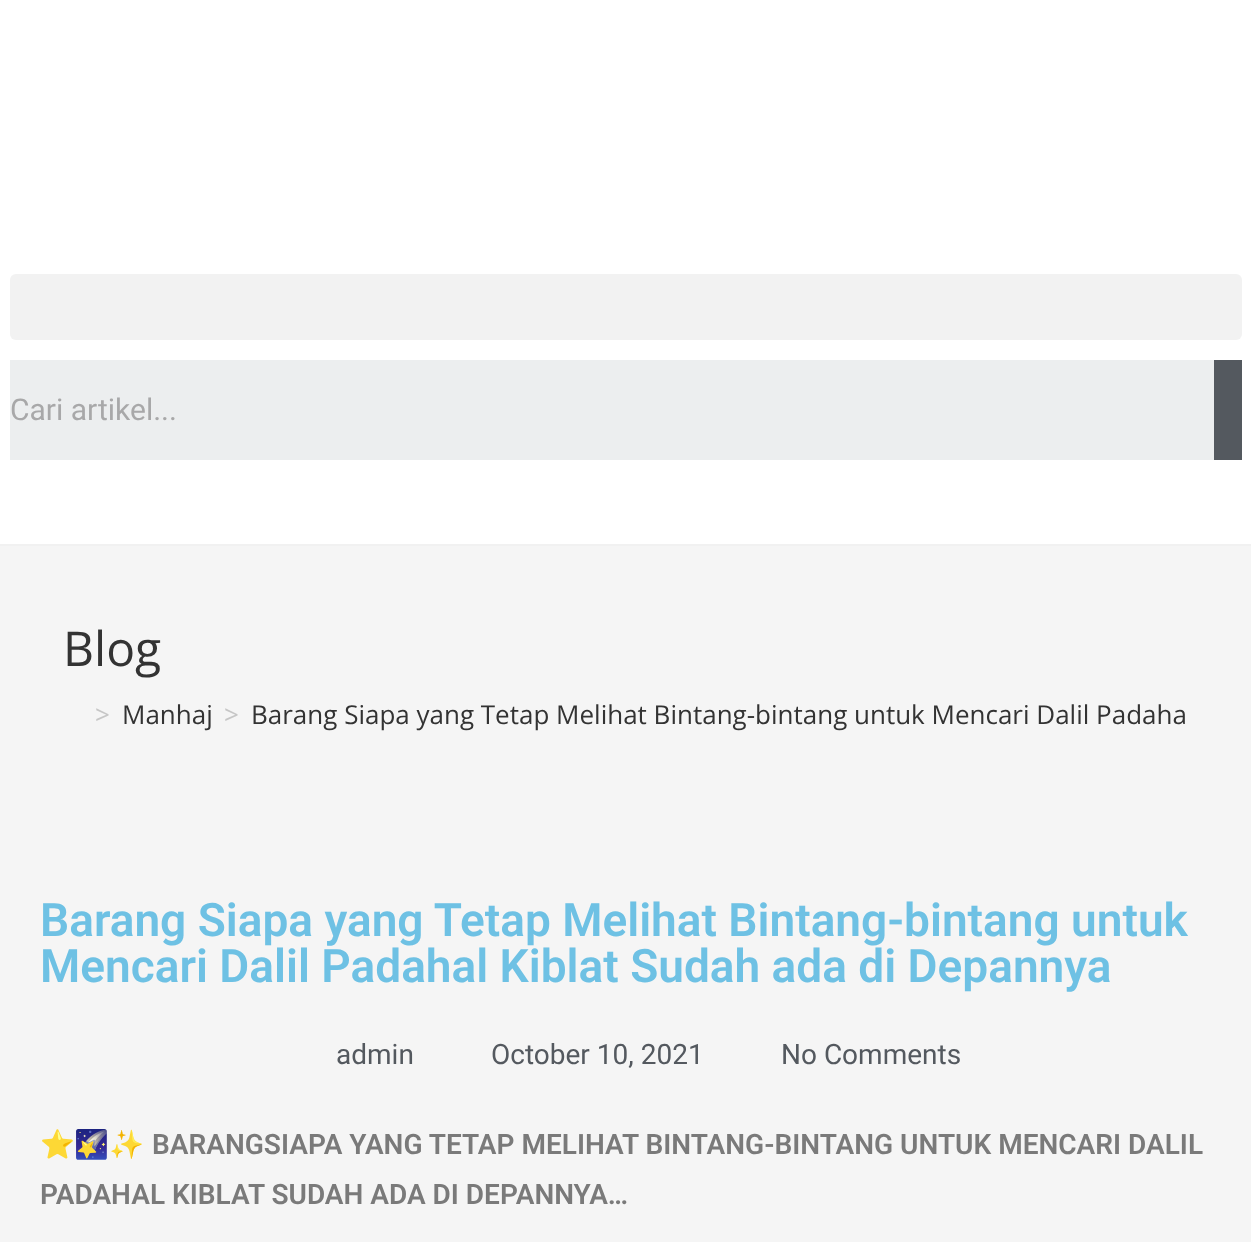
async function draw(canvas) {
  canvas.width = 1251
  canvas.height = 1242
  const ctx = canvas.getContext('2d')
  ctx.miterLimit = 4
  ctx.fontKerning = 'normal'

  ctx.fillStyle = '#f5f5f5'
  ctx.fillRect(0, 0, 1251, 1242)
  ctx.fillStyle = '#fff'
  ctx.fillRect(0, 0, 1251, 544)
  ctx.fillStyle = '#f1f1f1'
  ctx.fillRect(0, 544, 1251, 2)
  ctx.fillStyle = '#f2f2f2'
  ctx.beginPath()
  ctx.roundRect(10, 274, 1232, 66, 6)
  ctx.fill()
  ctx.fillStyle = '#eceeef'
  ctx.fillRect(10, 360, 1204, 100)
  ctx.font = '30px Roboto'
  ctx.fillStyle = '#a8a8a9'
  ctx.fillText('Cari artikel...', 10, 420)
  ctx.fillStyle = '#54595f'
  ctx.fillRect(1214, 360, 28, 100)
  ctx.font = '48px Open Sans'
  ctx.fillStyle = '#333'
  ctx.fillText('Blog', 63, 666)
  ctx.font = '26px Open Sans'
  ctx.fillStyle = '#c6c6c6'
  ctx.fillText('>', 95, 724)
  ctx.fillStyle = '#333'
  ctx.fillText('Manhaj', 122, 724)
  ctx.fillStyle = '#c6c6c6'
  ctx.fillText('>', 224, 724)
  ctx.fillStyle = '#333'
  ctx.fillText('Barang Siapa yang Tetap Melihat Bintang-bintang untuk Mencari Dalil Padaha', 251, 724)
  ctx.font = '600 46px Roboto'
  ctx.fillStyle = '#6ec1e4'
  ctx.fillText('Barang Siapa yang Tetap Melihat Bintang-bintang untuk', 40, 936)
  ctx.fillText('Mencari Dalil Padahal Kiblat Sudah ada di Depannya', 40, 982)
  ctx.font = '28px Roboto'
  ctx.fillStyle = '#54595f'
  ctx.fillText('admin', 336, 1064)
  ctx.fillText('October 10, 2021', 491, 1064)
  ctx.fillText('No Comments', 781, 1064)
  ctx.font = '28px Noto Color Emoji'
  ctx.fillStyle = '#7a7a7a'
  ctx.fillText('⭐️🌠✨', 40, 1154)
  ctx.font = '600 28px Roboto'
  ctx.fillText('BARANGSIAPA YANG TETAP MELIHAT BINTANG-BINTANG UNTUK MENCARI DALIL', 152, 1154)
  ctx.fillText('PADAHAL KIBLAT SUDAH ADA DI DEPANNYA…', 40, 1204)
}

draw(document.querySelector('canvas'))
